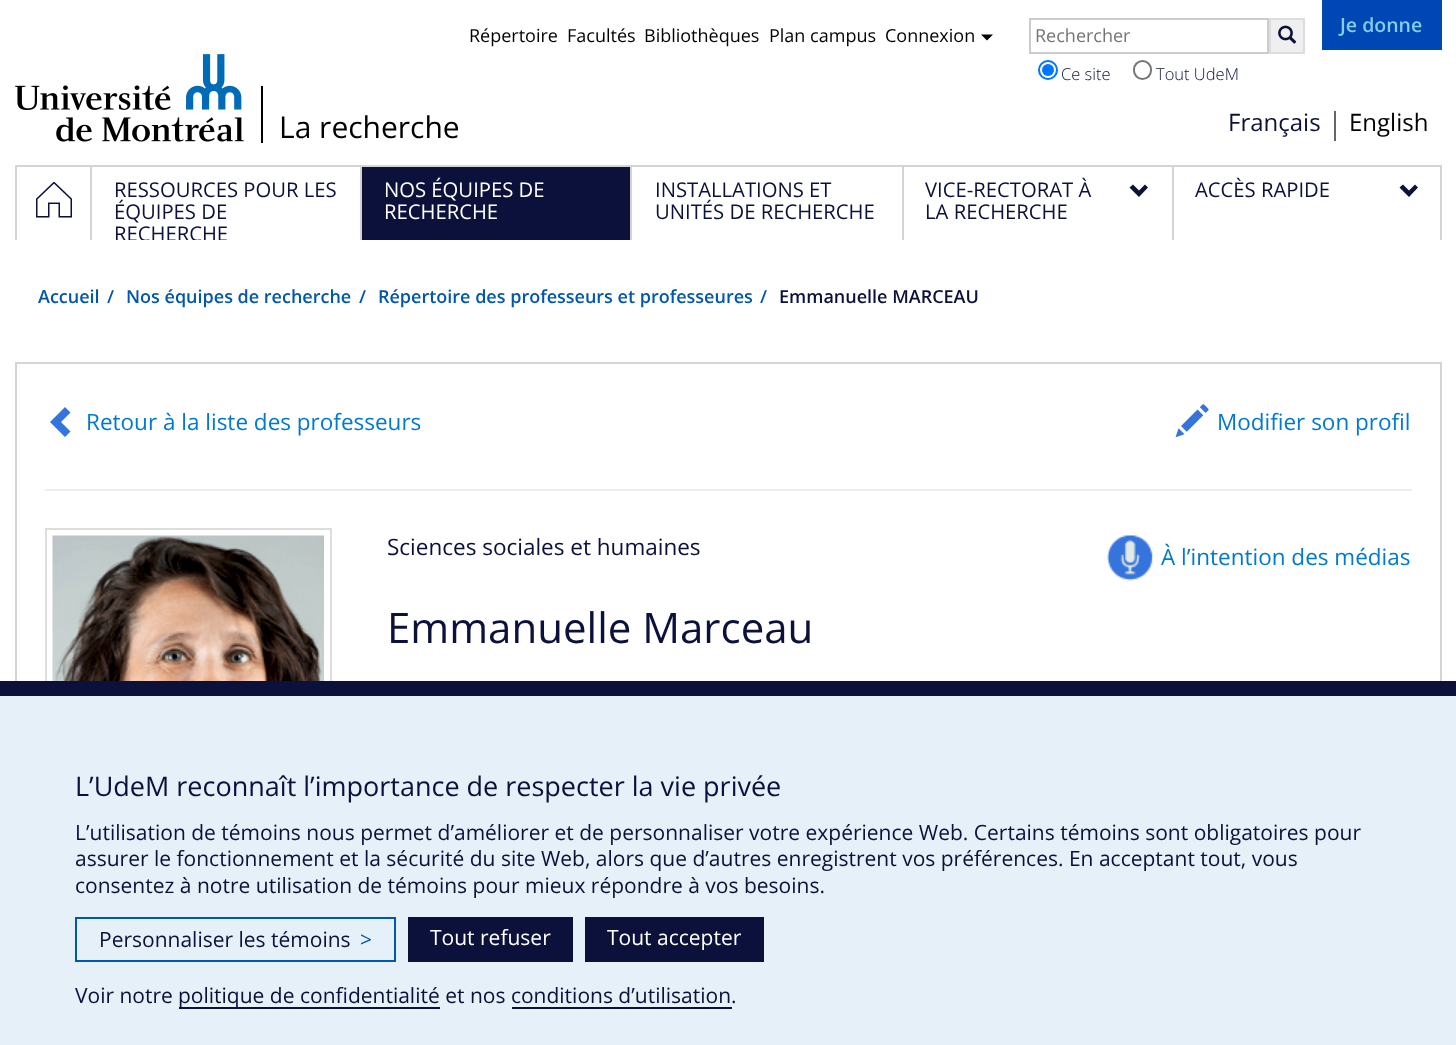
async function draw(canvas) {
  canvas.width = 1456
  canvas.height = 1045
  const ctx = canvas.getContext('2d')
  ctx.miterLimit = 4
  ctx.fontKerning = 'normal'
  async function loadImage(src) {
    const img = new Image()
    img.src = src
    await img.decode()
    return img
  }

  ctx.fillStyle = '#fff'
  ctx.fillRect(0, 0, 1456, 1045)
  ctx.font = '18px Open Sans'
  ctx.fillStyle = '#000'
  ctx.fillText('Répertoire', 469, 42)
  ctx.fillText('Facultés', 567, 42)
  ctx.fillText('Bibliothèques', 644, 42)
  ctx.fillText('Plan campus', 769, 42)
  ctx.fillText('Connexion', 885, 42)
  ctx.beginPath()
  ctx.moveTo(981, 34.5)
  ctx.lineTo(993, 34.5)
  ctx.lineTo(987, 40.5)
  ctx.closePath()
  ctx.fill()
  ctx.strokeStyle = '#ccc'
  ctx.lineWidth = 2
  ctx.strokeRect(1030, 19, 238, 34)
  ctx.fillStyle = '#757575'
  ctx.fillText('Rechercher', 1035, 42)
  ctx.fillStyle = '#efefef'
  ctx.beginPath()
  ctx.rect(1270, 19, 34, 34)
  ctx.fill()
  ctx.strokeStyle = '#ddd'
  ctx.stroke()
  ctx.drawImage(await loadImage('image0.png'), 1278, 25, 19, 19)
  ctx.beginPath()
  ctx.arc(1048, 70, 9, 0, 2 * Math.PI)
  ctx.strokeStyle = '#0075ff'
  ctx.stroke()
  ctx.fillStyle = '#0075ff'
  ctx.beginPath()
  ctx.arc(1048, 70, 6, 0, 2 * Math.PI)
  ctx.fill()
  ctx.font = '300 16.5px Open Sans'
  ctx.fillStyle = '#0b113a'
  ctx.fillText('Ce site', 1061, 80)
  ctx.beginPath()
  ctx.roundRect(1134, 61, 17, 18, 8.5)
  ctx.strokeStyle = '#767676'
  ctx.stroke()
  ctx.fillText('Tout UdeM', 1156, 80)
  ctx.fillStyle = '#0047b6'
  ctx.fillRect(1322, 0, 120, 50)
  ctx.font = '600 19.5px Open Sans'
  ctx.fillStyle = '#85cde6'
  ctx.fillText('Je donne', 1340, 32)
  ctx.drawImage(await loadImage('image1.png'), 15, 54, 229, 88)
  ctx.fillStyle = '#000'
  ctx.fillRect(261, 86, 2, 57)
  ctx.font = '30px Open Sans'
  ctx.fillText('La recherche', 279, 138)
  ctx.font = '24px Open Sans'
  ctx.fillStyle = '#0b113a'
  ctx.fillText('Français', 1228, 131)
  ctx.fillStyle = '#666'
  ctx.fillRect(1334, 111, 2, 30)
  ctx.fillStyle = '#000'
  ctx.fillText('English', 1349, 131)
  ctx.fillStyle = '#d4d4d4'
  ctx.fillRect(15, 165, 1427, 2)
  ctx.fillRect(15, 165, 2, 75)
  ctx.drawImage(await loadImage('image2.png'), 36, 182, 36, 36)
  ctx.fillRect(90, 165, 2, 75)
  ctx.font = '20.25px Open Sans'
  ctx.fillStyle = '#0b113a'
  ctx.fillText('RESSOURCES POUR LES', 114, 197)
  ctx.fillText('ÉQUIPES DE', 114, 219)
  ctx.save()
  ctx.beginPath()
  ctx.rect(92, 167, 268, 73)
  ctx.clip()
  ctx.fillText('RECHERCHE', 114, 241)
  ctx.restore()
  ctx.fillRect(362, 167, 268, 73)
  ctx.fillStyle = '#d4d4d4'
  ctx.fillRect(360, 165, 2, 75)
  ctx.fillStyle = '#fff'
  ctx.fillText('NOS ÉQUIPES DE', 384, 197)
  ctx.fillText('RECHERCHE', 384, 219)
  ctx.fillStyle = '#d4d4d4'
  ctx.fillRect(630, 165, 2, 75)
  ctx.fillStyle = '#0b113a'
  ctx.fillText('INSTALLATIONS ET', 655, 197)
  ctx.fillText('UNITÉS DE RECHERCHE', 655, 219)
  ctx.fillStyle = '#d4d4d4'
  ctx.fillRect(902, 165, 2, 75)
  ctx.fillStyle = '#0b113a'
  ctx.fillText('VICE-RECTORAT À', 925, 197)
  ctx.beginPath()
  ctx.moveTo(1148, 187.5)
  ctx.lineTo(1139, 197)
  ctx.lineTo(1129.5, 187.5)
  ctx.lineTo(1133, 184.5)
  ctx.lineTo(1139, 190.5)
  ctx.lineTo(1145, 184.5)
  ctx.closePath()
  ctx.fill()
  ctx.fillText('LA RECHERCHE', 925, 219)
  ctx.fillStyle = '#d4d4d4'
  ctx.fillRect(1440, 165, 2, 75)
  ctx.fillRect(1172, 165, 2, 75)
  ctx.fillStyle = '#0b113a'
  ctx.fillText('ACCÈS RAPIDE', 1195, 197)
  ctx.beginPath()
  ctx.moveTo(1418, 187.5)
  ctx.lineTo(1409, 197)
  ctx.lineTo(1399.5, 187.5)
  ctx.lineTo(1403, 184.5)
  ctx.lineTo(1409, 190.5)
  ctx.lineTo(1415, 184.5)
  ctx.closePath()
  ctx.fill()
  ctx.font = '600 18px Open Sans'
  ctx.fillStyle = '#0057ac'
  ctx.fillText('Accueil', 38, 303)
  ctx.fillText('/', 107, 303)
  ctx.fillText('Nos équipes de recherche', 126, 303)
  ctx.fillText('/', 359, 303)
  ctx.fillText('Répertoire des professeurs et professeures', 378, 303)
  ctx.fillText('/', 760, 303)
  ctx.fillStyle = '#0b113a'
  ctx.fillText('Emmanuelle MARCEAU', 779, 303)
  ctx.strokeStyle = '#d4d4d4'
  ctx.strokeRect(16, 363, 1425, 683)
  ctx.fillStyle = '#3573dd'
  ctx.beginPath()
  ctx.moveTo(70.5, 412.5)
  ctx.lineTo(61, 422)
  ctx.lineTo(70.5, 431.5)
  ctx.lineTo(65, 437)
  ctx.lineTo(50, 422)
  ctx.lineTo(65, 407)
  ctx.closePath()
  ctx.fill()
  ctx.font = '22.5px Open Sans'
  ctx.fillStyle = '#007acc'
  ctx.fillText('Retour à la liste des professeurs', 86, 430)
  ctx.drawImage(await loadImage('image3.png'), 1175, 404, 34, 34)
  ctx.fillText('Modifier son profil', 1217, 430)
  ctx.fillStyle = '#eee'
  ctx.fillRect(45, 489, 1367, 2)
  ctx.strokeStyle = '#ddd'
  ctx.strokeRect(46, 529, 285, 285)
  ctx.drawImage(await loadImage('image4.png'), 52, 535, 272, 146)
  ctx.fillStyle = '#0b113a'
  ctx.fillText('Sciences sociales et humaines', 387, 555)
  ctx.drawImage(await loadImage('image5.png'), 1107, 535, 46, 46)
  ctx.fillStyle = '#007acc'
  ctx.fillText('À l’intention des médias', 1161, 565)
  ctx.font = '42px Open Sans'
  ctx.fillStyle = '#0b113a'
  ctx.fillText('Emmanuelle Marceau', 387, 643)
  ctx.fillStyle = '#e5f0f8'
  ctx.fillRect(0, 696, 1456, 349)
  ctx.fillStyle = '#0b113a'
  ctx.fillRect(0, 681, 1456, 15)
  ctx.font = '27px Open Sans'
  ctx.fillText('L’UdeM reconnaît l’importance de respecter la vie privée', 75, 796)
  ctx.font = '21px Open Sans'
  ctx.fillText('L’utilisation de témoins nous permet d’améliorer et de personnaliser votre expérience Web. Certains témoins sont obligatoires pour', 75, 840)
  ctx.fillText('assurer le fonctionnement et la sécurité du site Web, alors que d’autres enregistrent vos préférences. En acceptant tout, vous', 75, 866)
  ctx.fillText('consentez à notre utilisation de témoins pour mieux répondre à vos besoins.', 75, 893)
  ctx.strokeStyle = '#0057ac'
  ctx.strokeRect(76, 918, 319, 43)
  ctx.fillText('Personnaliser les témoins', 99, 947)
  ctx.fillStyle = '#0057ac'
  ctx.fillText('>', 360, 947)
  ctx.fillStyle = '#0b113a'
  ctx.fillRect(408, 917, 165, 45)
  ctx.fillStyle = '#fff'
  ctx.fillText('Tout refuser', 430, 945)
  ctx.fillStyle = '#0b113a'
  ctx.fillRect(585, 917, 179, 45)
  ctx.fillStyle = '#fff'
  ctx.fillText('Tout accepter', 607, 945)
  ctx.fillStyle = '#0b113a'
  ctx.fillText('Voir notre', 75, 1003)
  ctx.fillRect(179, 1007, 261, 2)
  ctx.fillText('politique de confidentialité et nos conditions d’utilisation.', 178, 1003)
  ctx.fillRect(512, 1007, 220, 2)
}

draw(document.querySelector('canvas'))
